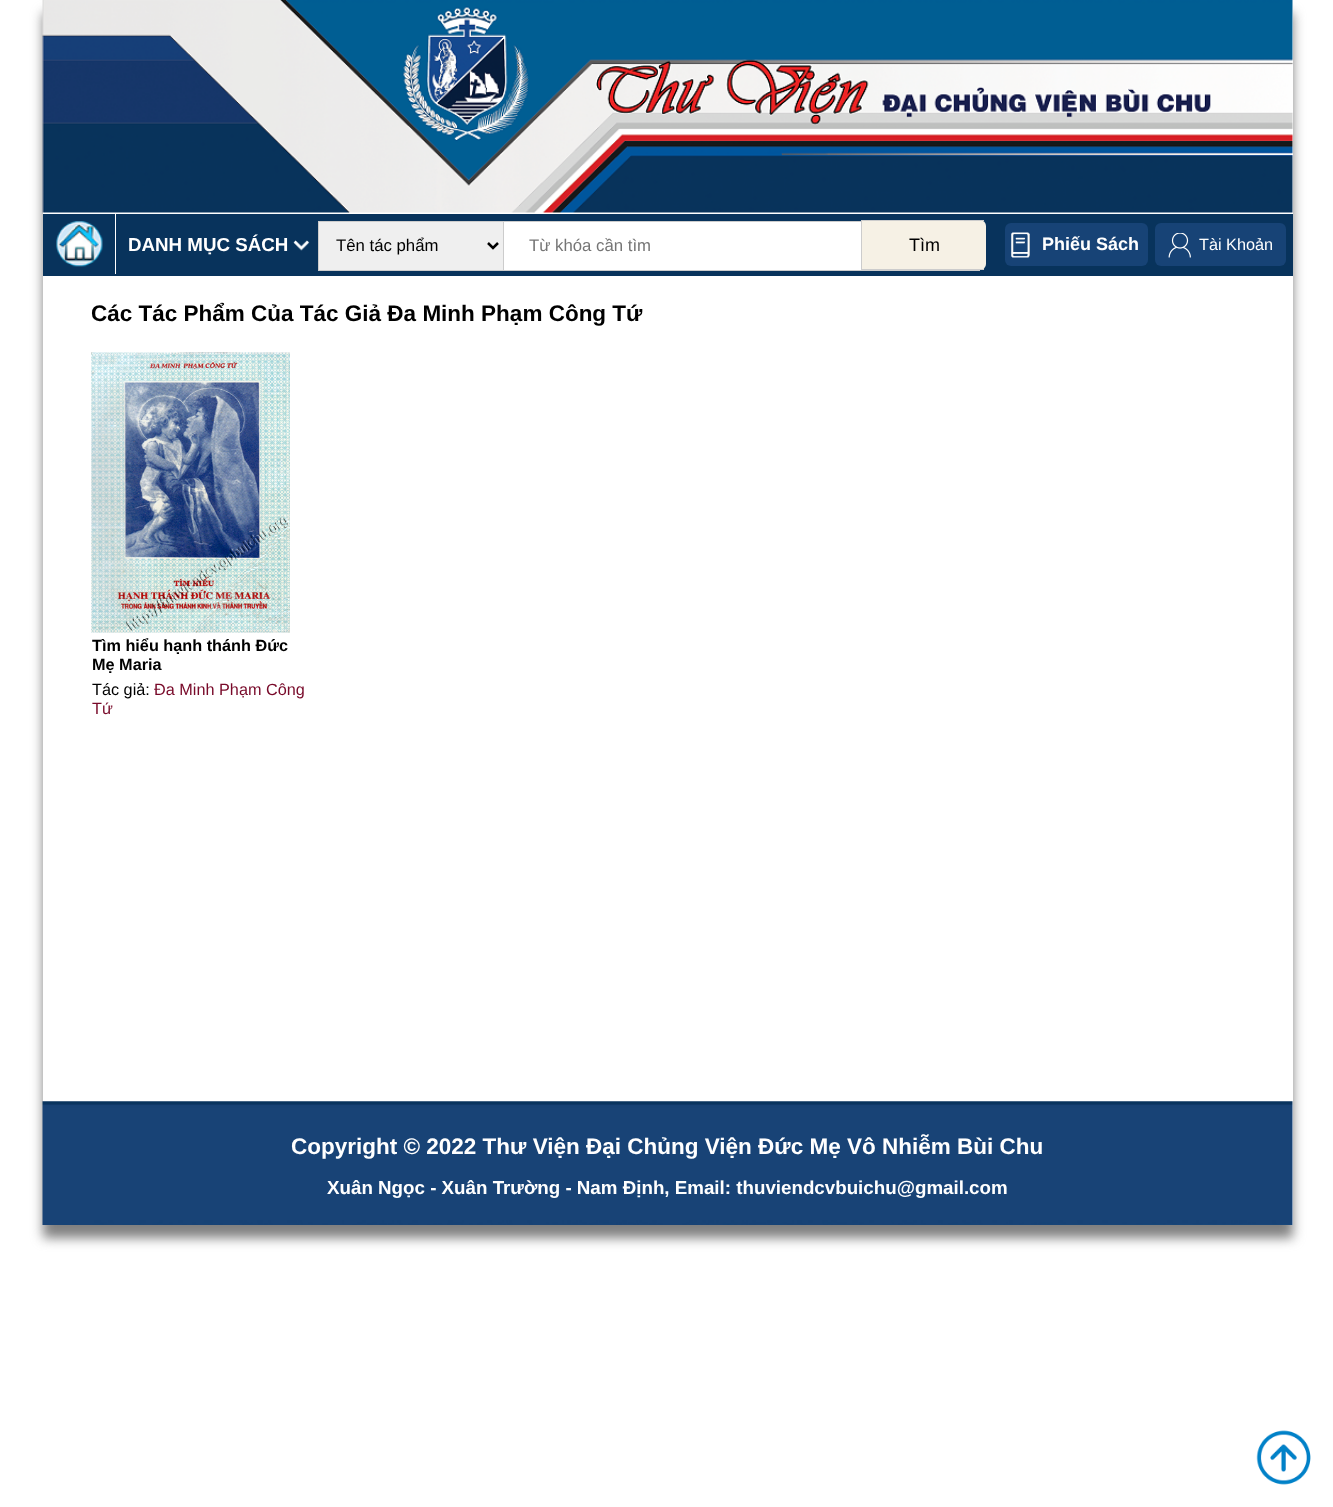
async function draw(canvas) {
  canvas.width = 1333
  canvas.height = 1507
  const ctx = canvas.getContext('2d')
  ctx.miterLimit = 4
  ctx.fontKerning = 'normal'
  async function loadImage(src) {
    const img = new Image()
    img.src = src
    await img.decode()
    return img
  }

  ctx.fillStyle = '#fff'
  ctx.fillRect(0, 0, 1333, 1507)
  ctx.save()
  ctx.beginPath()
  ctx.moveTo(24, 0)
  ctx.lineTo(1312, 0)
  ctx.lineTo(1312, 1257)
  ctx.lineTo(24, 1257)
  ctx.closePath()
  ctx.moveTo(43, 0)
  ctx.lineTo(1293, 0)
  ctx.lineTo(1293, 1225)
  ctx.lineTo(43, 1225)
  ctx.closePath()
  ctx.clip('evenodd')
  ctx.fillStyle = '#808080'
  ctx.filter = 'blur(6px)'
  ctx.beginPath()
  ctx.rect(43, 13, 1250, 1225)
  ctx.fill()
  ctx.filter = 'none'
  ctx.restore()
  ctx.drawImage(await loadImage('image0.png'), 42, 0, 1251, 213)
  ctx.fillStyle = '#08335c'
  ctx.fillRect(43, 214, 1250, 62)
  ctx.fillStyle = '#fff'
  ctx.fillRect(1292, 213, 1, 1)
  ctx.fillRect(115, 214, 1, 60)
  ctx.drawImage(await loadImage('image1.png'), 56, 221, 47, 46)
  ctx.drawImage(await loadImage('image2.png'), 293, 240, 17, 11)
  ctx.font = 'bold 18.75px Liberation Sans'
  ctx.fillText('DANH MỤC SÁCH', 128, 251)
  ctx.fillStyle = '#efefef'
  ctx.fillRect(319, 222, 184, 48)
  ctx.strokeStyle = '#ccc'
  ctx.strokeRect(318.5, 221.5, 186, 49)
  ctx.beginPath()
  ctx.moveTo(488, 243)
  ctx.lineTo(493, 248)
  ctx.lineTo(498, 243)
  ctx.strokeStyle = '#000'
  ctx.lineWidth = 2.5
  ctx.stroke()
  ctx.font = '16.75px Liberation Sans'
  ctx.fillStyle = '#000'
  ctx.fillText('Tên tác phẩm', 336, 251)
  ctx.fillStyle = '#fff'
  ctx.fillRect(504, 222, 357, 48)
  ctx.strokeStyle = '#ccc'
  ctx.lineWidth = 1
  ctx.strokeRect(503.5, 221.5, 476, 49)
  ctx.fillStyle = '#757575'
  ctx.fillText('Từ khóa cần tìm', 529, 251)
  ctx.fillStyle = '#f6f1e5'
  ctx.beginPath()
  ctx.roundRect(861, 220, 125, 50, [0, 6, 6, 0])
  ctx.fill()
  ctx.fillStyle = '#ccc'
  ctx.fillRect(861, 220, 123, 1)
  ctx.fillRect(861, 269, 123, 1)
  ctx.fillRect(861, 220, 1, 50)
  ctx.font = '18px Liberation Sans'
  ctx.fillStyle = '#000'
  ctx.fillText('Tìm', 909, 251)
  ctx.fillStyle = '#174376'
  ctx.beginPath()
  ctx.roundRect(1005, 223, 143, 43, 6)
  ctx.fill()
  ctx.drawImage(await loadImage('image3.png'), 1011, 232, 19, 26)
  ctx.font = 'bold 18px Liberation Sans'
  ctx.fillStyle = '#fff'
  ctx.fillText('Phiếu Sách', 1042, 250)
  ctx.fillStyle = '#174376'
  ctx.beginPath()
  ctx.roundRect(1155, 223, 131, 43, 6)
  ctx.fill()
  ctx.drawImage(await loadImage('image4.png'), 1168, 233, 23, 25)
  ctx.font = '16.25px Liberation Sans'
  ctx.fillStyle = '#fff'
  ctx.fillText('Tài Khoản', 1199, 250)
  ctx.font = 'bold 22.5px Liberation Sans'
  ctx.fillStyle = '#000'
  ctx.fillText('Các Tác Phẩm Của Tác Giả Đa Minh Phạm Công Tứ', 91, 321)
  ctx.drawImage(await loadImage('image5.png'), 91, 352, 199, 281)
  ctx.font = 'bold 16.25px Liberation Sans'
  ctx.fillText('Tìm hiểu hạnh thánh Đức', 92, 651)
  ctx.fillText('Mẹ Maria', 92, 670)
  ctx.font = '16.25px Liberation Sans'
  ctx.fillText('Tác giả:', 92, 695)
  ctx.fillStyle = '#780929'
  ctx.fillText('Đa Minh Phạm Công', 154, 695)
  ctx.fillText('Tứ', 92, 714)
  ctx.drawImage(await loadImage('image6.png'), 42, 1101, 1251, 124)
  ctx.font = 'bold 22.5px Liberation Sans'
  ctx.fillStyle = '#fff'
  ctx.fillText('Copyright © 2022 Thư Viện Đại Chủng Viện Đức Mẹ Vô Nhiễm Bùi Chu', 291, 1154)
  ctx.font = 'bold 18.75px Liberation Sans'
  ctx.fillText('Xuân Ngọc - Xuân Trường - Nam Định, Email: thuviendcvbuichu@gmail.com', 327, 1194)
  ctx.drawImage(await loadImage('image7.png'), 1256, 1430, 55, 55)
}

draw(document.querySelector('canvas'))
